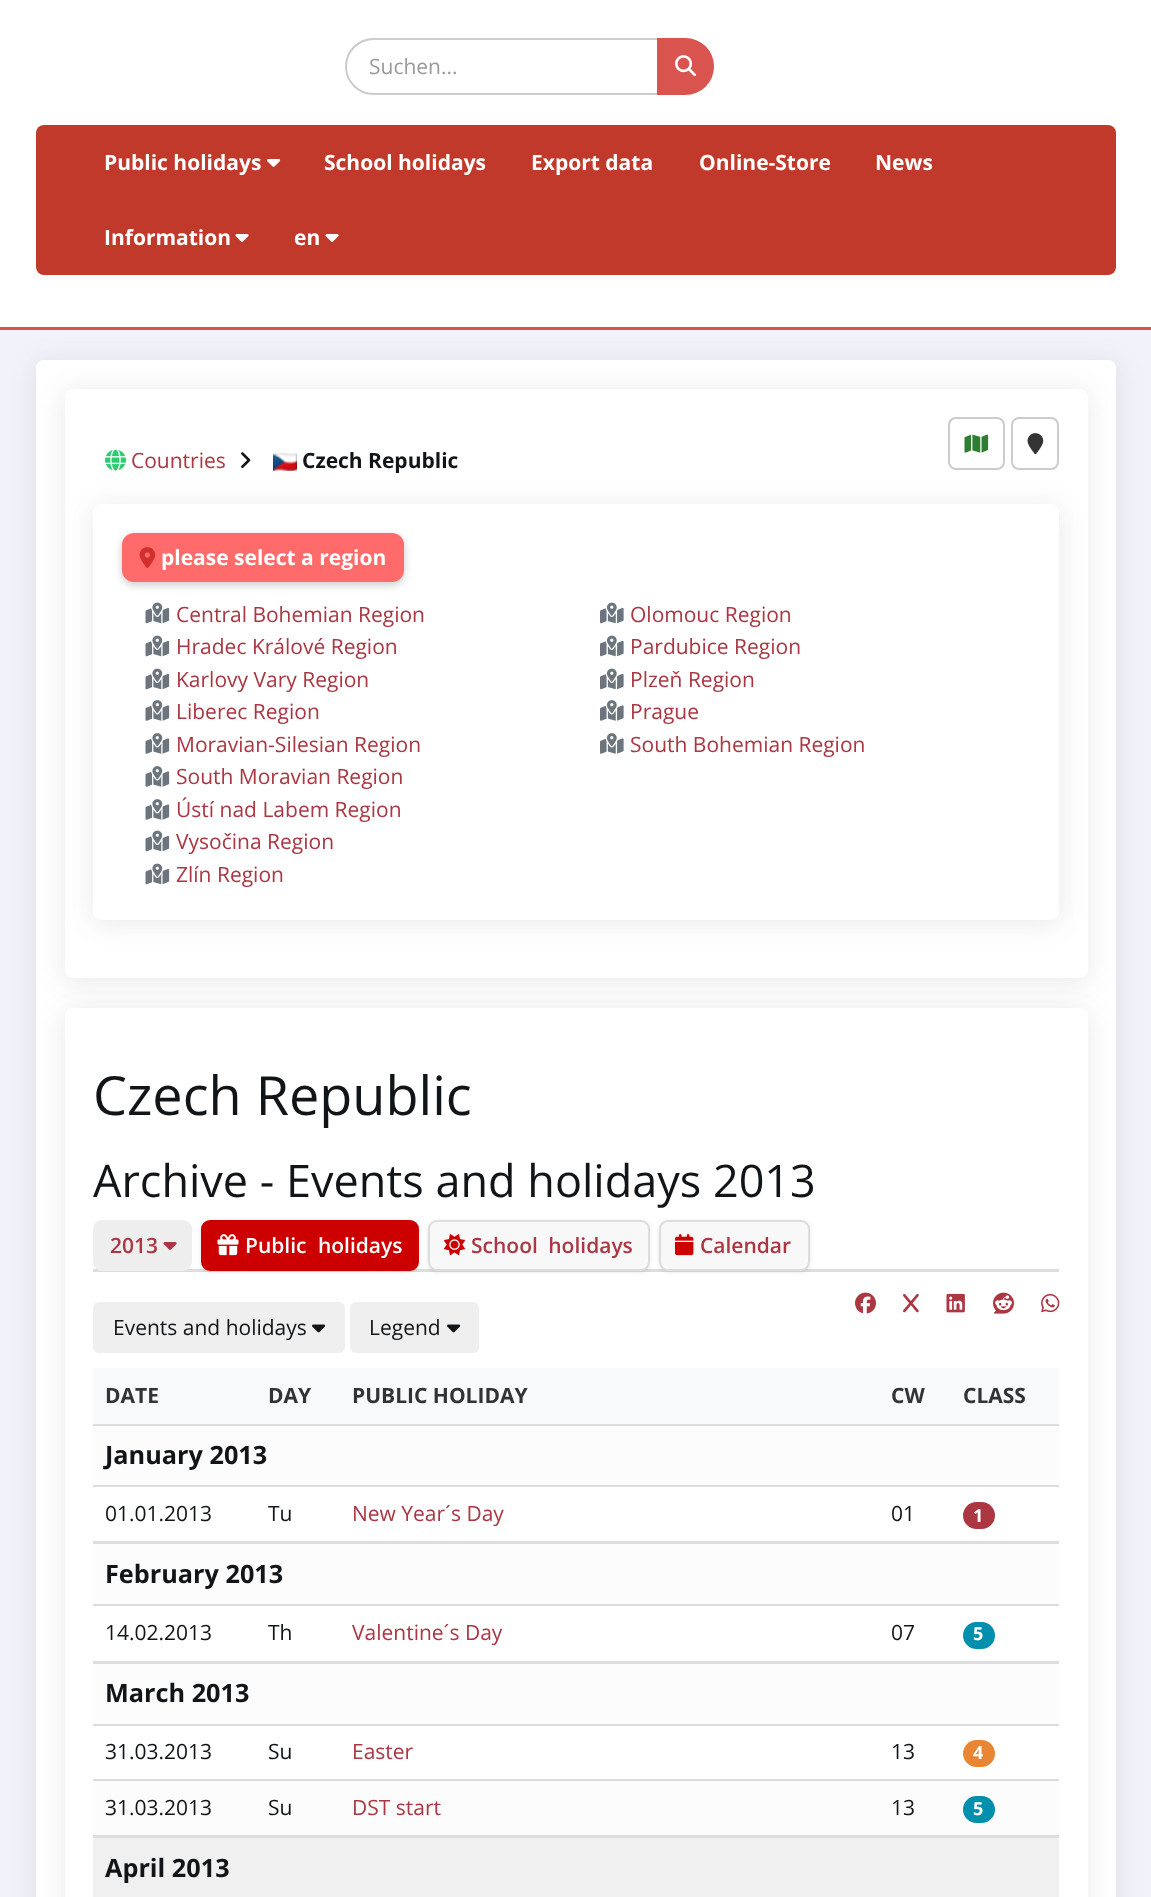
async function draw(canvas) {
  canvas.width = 1151
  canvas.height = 1897
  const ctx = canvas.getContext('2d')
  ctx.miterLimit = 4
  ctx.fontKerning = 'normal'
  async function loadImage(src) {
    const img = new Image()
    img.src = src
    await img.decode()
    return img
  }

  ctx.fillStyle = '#f2f3fa'
  ctx.fillRect(0, 0, 1151, 1897)
  ctx.fillStyle = '#fff'
  ctx.fillRect(0, 0, 1151, 327)
  ctx.fillStyle = '#d9534f'
  ctx.fillRect(0, 327, 1151, 3)
  ctx.fillStyle = '#ececec'
  ctx.beginPath()
  ctx.moveTo(374, 40)
  ctx.lineTo(657, 40)
  ctx.lineTo(657, 39)
  ctx.lineTo(374, 39)
  ctx.bezierCurveTo(363, 39, 353, 46, 349, 56)
  ctx.bezierCurveTo(354, 46, 363, 40, 374, 40)
  ctx.closePath()
  ctx.fill()
  ctx.beginPath()
  ctx.roundRect(346, 39, 312, 55, [27.5, 0, 0, 27.5])
  ctx.strokeStyle = '#ccc'
  ctx.lineWidth = 2
  ctx.stroke()
  ctx.font = '21px Open Sans'
  ctx.fillStyle = '#999'
  ctx.fillText('Suchen...', 369, 74)
  ctx.fillStyle = '#d9534f'
  ctx.beginPath()
  ctx.roundRect(657, 38, 57, 57, [0, 28.5, 28.5, 0])
  ctx.fill()
  ctx.drawImage(await loadImage('image0.png'), 675, 55, 21, 22)
  ctx.fillStyle = '#c0392b'
  ctx.beginPath()
  ctx.roundRect(36, 125, 1080, 150, 8)
  ctx.fill()
  ctx.font = 'bold 21px Open Sans'
  ctx.fillStyle = '#fff'
  ctx.fillText('Public holidays', 104, 170)
  ctx.drawImage(await loadImage('image1.png'), 267, 159, 14, 8)
  ctx.fillText('School holidays', 324, 170)
  ctx.fillText('Export data', 531, 170)
  ctx.fillText('Online-Store', 699, 170)
  ctx.fillText('News', 875, 170)
  ctx.fillText('Information', 104, 245)
  ctx.drawImage(await loadImage('image2.png'), 235, 234, 14, 8)
  ctx.fillText('en', 294, 245)
  ctx.drawImage(await loadImage('image2.png'), 325, 234, 14, 8)
  ctx.fillStyle = '#3135481a'
  ctx.filter = 'blur(13.5px)'
  ctx.beginPath()
  ctx.roundRect(35, 362, 1083, 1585, 9)
  ctx.fill()
  ctx.filter = 'none'
  ctx.fillStyle = '#fff'
  ctx.beginPath()
  ctx.roundRect(36, 360, 1080, 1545, 8)
  ctx.fill()
  ctx.fillStyle = '#3135481a'
  ctx.filter = 'blur(13.5px)'
  ctx.beginPath()
  ctx.roundRect(63, 390, 1026, 593, 9)
  ctx.fill()
  ctx.filter = 'none'
  ctx.fillStyle = '#fff'
  ctx.beginPath()
  ctx.roundRect(65, 389, 1023, 589, 8)
  ctx.fill()
  ctx.fillStyle = '#3135481a'
  ctx.filter = 'blur(13.5px)'
  ctx.beginPath()
  ctx.roundRect(92, 506, 969, 418, 9)
  ctx.fill()
  ctx.filter = 'none'
  ctx.drawImage(await loadImage('image3.png'), 105, 449, 21, 22)
  ctx.font = '21px Open Sans'
  ctx.fillStyle = '#ab3743'
  ctx.fillText('Countries', 131, 468)
  ctx.drawImage(await loadImage('image4.png'), 241, 452, 10, 16)
  ctx.drawImage(await loadImage('image5.png'), 273, 453, 24, 18)
  ctx.font = 'bold 21px Open Sans'
  ctx.fillStyle = '#121518'
  ctx.fillText('Czech Republic', 302, 468)
  ctx.beginPath()
  ctx.roundRect(949, 418, 55, 51, 7)
  ctx.stroke()
  ctx.drawImage(await loadImage('image6.png'), 964, 434, 25, 19)
  ctx.beginPath()
  ctx.roundRect(1012, 418, 46, 51, 7)
  ctx.stroke()
  ctx.drawImage(await loadImage('image7.png'), 1027, 433, 17, 22)
  ctx.fillStyle = '#fff'
  ctx.beginPath()
  ctx.roundRect(93, 504, 966, 416, 8)
  ctx.fill()
  ctx.fillStyle = '#00000033'
  ctx.filter = 'blur(4.5px)'
  ctx.beginPath()
  ctx.roundRect(122, 536, 282, 49, 12)
  ctx.fill()
  ctx.filter = 'none'
  ctx.fillStyle = '#ff6b6b'
  ctx.beginPath()
  ctx.roundRect(122, 533, 282, 49, 12)
  ctx.fill()
  ctx.drawImage(await loadImage('image8.png'), 139, 547, 17, 21)
  ctx.fillStyle = '#fff'
  ctx.fillText('please select a region', 161, 565)
  ctx.drawImage(await loadImage('image9.png'), 145, 602, 25, 22)
  ctx.font = '21px Open Sans'
  ctx.fillStyle = '#ab3743'
  ctx.fillText('Central Bohemian Region', 176, 622)
  ctx.drawImage(await loadImage('image9.png'), 145, 635, 25, 22)
  ctx.fillText('Hradec Králové Region', 176, 654)
  ctx.drawImage(await loadImage('image9.png'), 145, 668, 25, 22)
  ctx.fillText('Karlovy Vary Region', 176, 687)
  ctx.drawImage(await loadImage('image10.png'), 145, 700, 25, 21)
  ctx.fillText('Liberec Region', 176, 719)
  ctx.drawImage(await loadImage('image10.png'), 145, 733, 25, 21)
  ctx.fillText('Moravian-Silesian Region', 176, 752)
  ctx.drawImage(await loadImage('image11.png'), 600, 602, 24, 22)
  ctx.fillText('Olomouc Region', 630, 622)
  ctx.drawImage(await loadImage('image11.png'), 600, 635, 24, 22)
  ctx.fillText('Pardubice Region', 630, 654)
  ctx.drawImage(await loadImage('image11.png'), 600, 668, 24, 22)
  ctx.fillText('Plzeň Region', 630, 687)
  ctx.drawImage(await loadImage('image12.png'), 600, 700, 24, 21)
  ctx.fillText('Prague', 630, 719)
  ctx.drawImage(await loadImage('image12.png'), 600, 733, 24, 21)
  ctx.fillText('South Bohemian Region', 630, 752)
  ctx.drawImage(await loadImage('image10.png'), 145, 766, 25, 21)
  ctx.fillText('South Moravian Region', 176, 784)
  ctx.drawImage(await loadImage('image10.png'), 145, 799, 25, 21)
  ctx.fillText('Ústí nad Labem Region', 176, 817)
  ctx.drawImage(await loadImage('image9.png'), 145, 830, 25, 22)
  ctx.fillText('Vysočina Region', 176, 849)
  ctx.drawImage(await loadImage('image9.png'), 145, 863, 25, 22)
  ctx.fillText('Zlín Region', 176, 882)
  ctx.fillStyle = '#3135481a'
  ctx.filter = 'blur(13.5px)'
  ctx.beginPath()
  ctx.roundRect(63, 1010, 1026, 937, 9)
  ctx.fill()
  ctx.filter = 'none'
  ctx.fillStyle = '#fff'
  ctx.beginPath()
  ctx.roundRect(65, 1008, 1023, 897, 8)
  ctx.fill()
  ctx.font = '54px Open Sans'
  ctx.fillStyle = '#121518'
  ctx.fillText('Czech Republic', 93, 1115)
  ctx.font = '45px Open Sans'
  ctx.fillText('Archive - Events and holidays 2013', 93, 1197)
  ctx.fillStyle = '#ddd'
  ctx.fillRect(93, 1269, 966, 3)
  ctx.fillStyle = '#eee'
  ctx.beginPath()
  ctx.roundRect(93, 1220, 99, 51, 9)
  ctx.fill()
  ctx.font = '600 21px Open Sans'
  ctx.fillStyle = '#ab3743'
  ctx.fillText('2013', 110, 1253)
  ctx.drawImage(await loadImage('image13.png'), 163, 1242, 14, 8)
  ctx.fillStyle = '#0000001a'
  ctx.filter = 'blur(2px)'
  ctx.beginPath()
  ctx.roundRect(201, 1221, 218, 51, 9)
  ctx.fill()
  ctx.filter = 'none'
  ctx.fillStyle = '#c00'
  ctx.beginPath()
  ctx.roundRect(202, 1221, 216, 49, 8)
  ctx.fill()
  ctx.strokeStyle = '#c00'
  ctx.stroke()
  ctx.drawImage(await loadImage('image14.png'), 217, 1234, 22, 22)
  ctx.wordSpacing = '6px'
  ctx.fillStyle = '#fff'
  ctx.fillText('Public holidays', 245, 1253)
  ctx.fillStyle = '#0000001a'
  ctx.filter = 'blur(2px)'
  ctx.beginPath()
  ctx.roundRect(428, 1221, 222, 51, 9)
  ctx.fill()
  ctx.filter = 'none'
  ctx.fillStyle = '#f8f8f8'
  ctx.beginPath()
  ctx.roundRect(429, 1221, 220, 49, 8)
  ctx.fill()
  ctx.strokeStyle = '#ddd'
  ctx.stroke()
  ctx.drawImage(await loadImage('image15.png'), 444, 1234, 21, 22)
  ctx.wordSpacing = '5px'
  ctx.fillStyle = '#ab3743'
  ctx.fillText('School holidays', 471, 1253)
  ctx.fillStyle = '#0000001a'
  ctx.filter = 'blur(2px)'
  ctx.beginPath()
  ctx.roundRect(659, 1221, 151, 51, 9)
  ctx.fill()
  ctx.filter = 'none'
  ctx.fillStyle = '#f8f8f8'
  ctx.beginPath()
  ctx.roundRect(660, 1221, 149, 49, 8)
  ctx.fill()
  ctx.stroke()
  ctx.drawImage(await loadImage('image16.png'), 675, 1234, 19, 22)
  ctx.wordSpacing = '0px'
  ctx.fillStyle = '#ab3743'
  ctx.fillText('Calendar', 700, 1253)
  ctx.drawImage(await loadImage('image17.png'), 855, 1292, 21, 22)
  ctx.drawImage(await loadImage('image18.png'), 903, 1293, 16, 20)
  ctx.drawImage(await loadImage('image19.png'), 946, 1293, 19, 20)
  ctx.drawImage(await loadImage('image20.png'), 993, 1292, 21, 22)
  ctx.drawImage(await loadImage('image21.png'), 1041, 1293, 19, 20)
  ctx.fillStyle = '#efefef'
  ctx.beginPath()
  ctx.roundRect(93, 1302, 252, 51, 6)
  ctx.fill()
  ctx.font = '21px Open Sans'
  ctx.fillStyle = '#121518'
  ctx.fillText('Events and holidays', 113, 1335)
  ctx.drawImage(await loadImage('image22.png'), 312, 1324, 14, 9)
  ctx.fillStyle = '#efefef'
  ctx.beginPath()
  ctx.roundRect(350, 1302, 129, 51, 6)
  ctx.fill()
  ctx.fillStyle = '#121518'
  ctx.fillText('Legend', 369, 1335)
  ctx.drawImage(await loadImage('image22.png'), 447, 1324, 14, 9)
  ctx.fillStyle = '#f8f9fa'
  ctx.fillRect(93, 1368, 966, 56)
  ctx.font = 'bold 21px Open Sans'
  ctx.fillStyle = '#333'
  ctx.fillText('DATE', 105, 1403)
  ctx.fillText('DAY', 268, 1403)
  ctx.fillText('PUBLIC HOLIDAY', 352, 1403)
  ctx.fillText('CW', 891, 1403)
  ctx.fillText('CLASS', 963, 1403)
  ctx.fillStyle = '#fcfcfc'
  ctx.fillRect(93, 1426, 966, 59)
  ctx.fillStyle = '#ddd'
  ctx.fillRect(93, 1424, 966, 2)
  ctx.font = 'bold 25.25px Open Sans'
  ctx.fillStyle = '#121518'
  ctx.fillText('January 2013', 105, 1464)
  ctx.font = '21px Open Sans'
  ctx.fillText('01.01.2013', 105, 1521)
  ctx.fillText('Tu', 268, 1521)
  ctx.fillStyle = '#ab3743'
  ctx.fillText('New Year´s Day', 352, 1521)
  ctx.fillStyle = '#121518'
  ctx.fillText('01', 891, 1521)
  ctx.fillStyle = '#ddd'
  ctx.fillRect(93, 1485, 966, 2)
  ctx.fillStyle = '#ab3743'
  ctx.beginPath()
  ctx.roundRect(963, 1502, 32, 27, 13.5)
  ctx.fill()
  ctx.font = 'bold 18px Open Sans'
  ctx.fillStyle = '#fff'
  ctx.fillText('1', 973, 1522)
  ctx.fillStyle = '#fcfcfc'
  ctx.fillRect(93, 1544, 966, 60)
  ctx.fillStyle = '#ddd'
  ctx.fillRect(93, 1541, 966, 3)
  ctx.font = 'bold 25.25px Open Sans'
  ctx.fillStyle = '#121518'
  ctx.fillText('February 2013', 105, 1583)
  ctx.font = '21px Open Sans'
  ctx.fillText('14.02.2013', 105, 1640)
  ctx.fillText('Th', 268, 1640)
  ctx.fillStyle = '#ab3743'
  ctx.fillText('Valentine´s Day', 352, 1640)
  ctx.fillStyle = '#121518'
  ctx.fillText('07', 891, 1640)
  ctx.fillStyle = '#ddd'
  ctx.fillRect(93, 1604, 966, 2)
  ctx.fillStyle = '#0090ad'
  ctx.beginPath()
  ctx.roundRect(963, 1622, 32, 27, 13.5)
  ctx.fill()
  ctx.font = 'bold 18px Open Sans'
  ctx.fillStyle = '#fff'
  ctx.fillText('5', 973, 1640)
  ctx.fillStyle = '#fcfcfc'
  ctx.fillRect(93, 1664, 966, 60)
  ctx.fillStyle = '#ddd'
  ctx.fillRect(93, 1661, 966, 3)
  ctx.font = 'bold 25.25px Open Sans'
  ctx.fillStyle = '#121518'
  ctx.fillText('March 2013', 105, 1702)
  ctx.font = '21px Open Sans'
  ctx.fillText('31.03.2013', 105, 1759)
  ctx.fillText('Su', 268, 1759)
  ctx.fillStyle = '#ab3743'
  ctx.fillText('Easter', 352, 1759)
  ctx.fillStyle = '#121518'
  ctx.fillText('13', 891, 1759)
  ctx.fillStyle = '#ddd'
  ctx.fillRect(93, 1724, 966, 2)
  ctx.fillStyle = '#e98635'
  ctx.beginPath()
  ctx.roundRect(963, 1740, 32, 27, 13.5)
  ctx.fill()
  ctx.font = 'bold 18px Open Sans'
  ctx.fillStyle = '#fff'
  ctx.fillText('4', 973, 1759)
  ctx.fillStyle = '#fcfcfc'
  ctx.fillRect(93, 1781, 966, 54)
  ctx.font = '21px Open Sans'
  ctx.fillStyle = '#121518'
  ctx.fillText('31.03.2013', 105, 1815)
  ctx.fillText('Su', 268, 1815)
  ctx.fillStyle = '#ab3743'
  ctx.fillText('DST start', 352, 1815)
  ctx.fillStyle = '#121518'
  ctx.fillText('13', 891, 1815)
  ctx.fillStyle = '#ddd'
  ctx.fillRect(93, 1779, 966, 2)
  ctx.fillStyle = '#0090ad'
  ctx.beginPath()
  ctx.roundRect(963, 1796, 32, 27, 13.5)
  ctx.fill()
  ctx.font = 'bold 18px Open Sans'
  ctx.fillStyle = '#fff'
  ctx.fillText('5', 973, 1815)
  ctx.fillStyle = '#f0f0f0'
  ctx.fillRect(93, 1838, 966, 59)
  ctx.fillStyle = '#ddd'
  ctx.fillRect(93, 1835, 966, 3)
  ctx.font = 'bold 25.25px Open Sans'
  ctx.fillStyle = '#121518'
  ctx.fillText('April 2013', 105, 1877)
}

draw(document.querySelector('canvas'))
